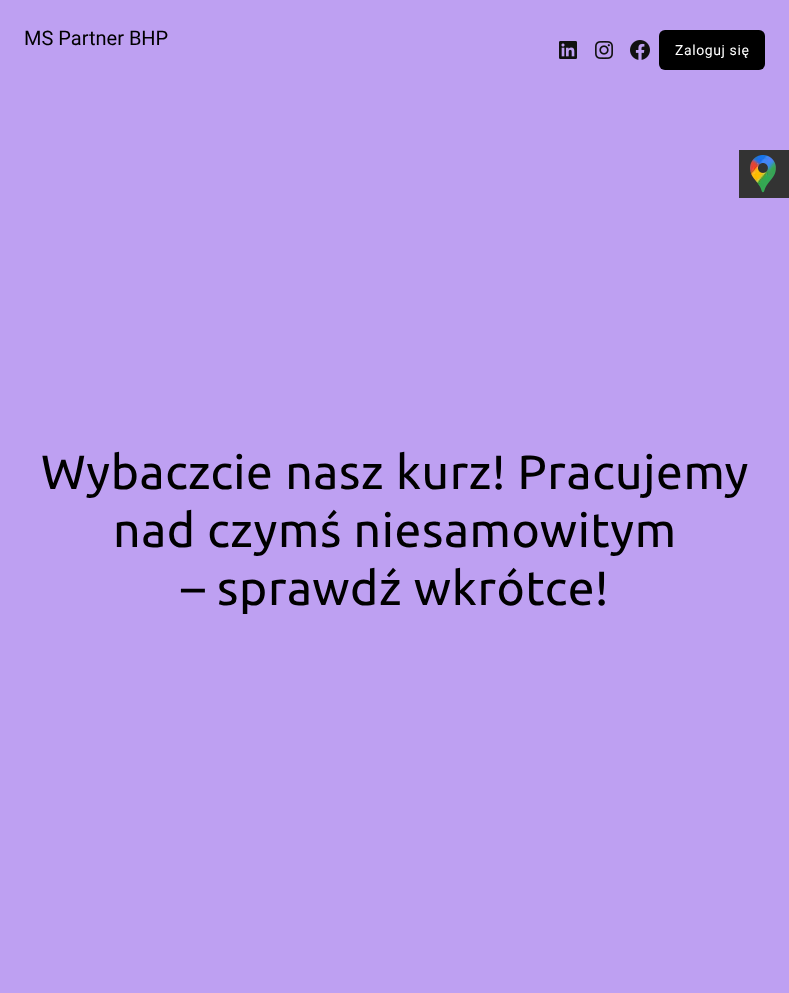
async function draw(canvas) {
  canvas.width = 789
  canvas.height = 993
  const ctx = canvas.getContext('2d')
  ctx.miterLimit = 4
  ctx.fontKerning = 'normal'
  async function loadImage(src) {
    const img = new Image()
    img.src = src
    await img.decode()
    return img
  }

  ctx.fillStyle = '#bea0f2'
  ctx.fillRect(0, 0, 789, 993)
  ctx.font = '20px Roboto'
  ctx.fillStyle = '#000'
  ctx.fillText('MS Partner BHP', 24, 45)
  ctx.drawImage(await loadImage('image0.png'), 559, 41, 18, 18)
  ctx.drawImage(await loadImage('image1.png'), 595, 41, 18, 18)
  ctx.drawImage(await loadImage('image2.png'), 630, 40, 20, 20)
  ctx.beginPath()
  ctx.roundRect(659, 30, 106, 40, 6)
  ctx.fill()
  ctx.letterSpacing = '0.6px'
  ctx.font = '14px Roboto'
  ctx.fillStyle = '#fff'
  ctx.fillText('Zaloguj się', 675, 55)
  ctx.font = '48px Ubuntu'
  ctx.fillStyle = '#000'
  ctx.fillText('Wybaczcie nasz kurz! Pracujemy', 41, 489)
  ctx.fillText('nad czymś niesamowitym', 113, 547)
  ctx.fillText('– sprawdź wkrótce!', 181, 605)
  ctx.fillStyle = '#333'
  ctx.fillRect(739, 150, 50, 48)
  ctx.drawImage(await loadImage('image3.png'), 750, 155, 26, 38)
}

draw(document.querySelector('canvas'))
